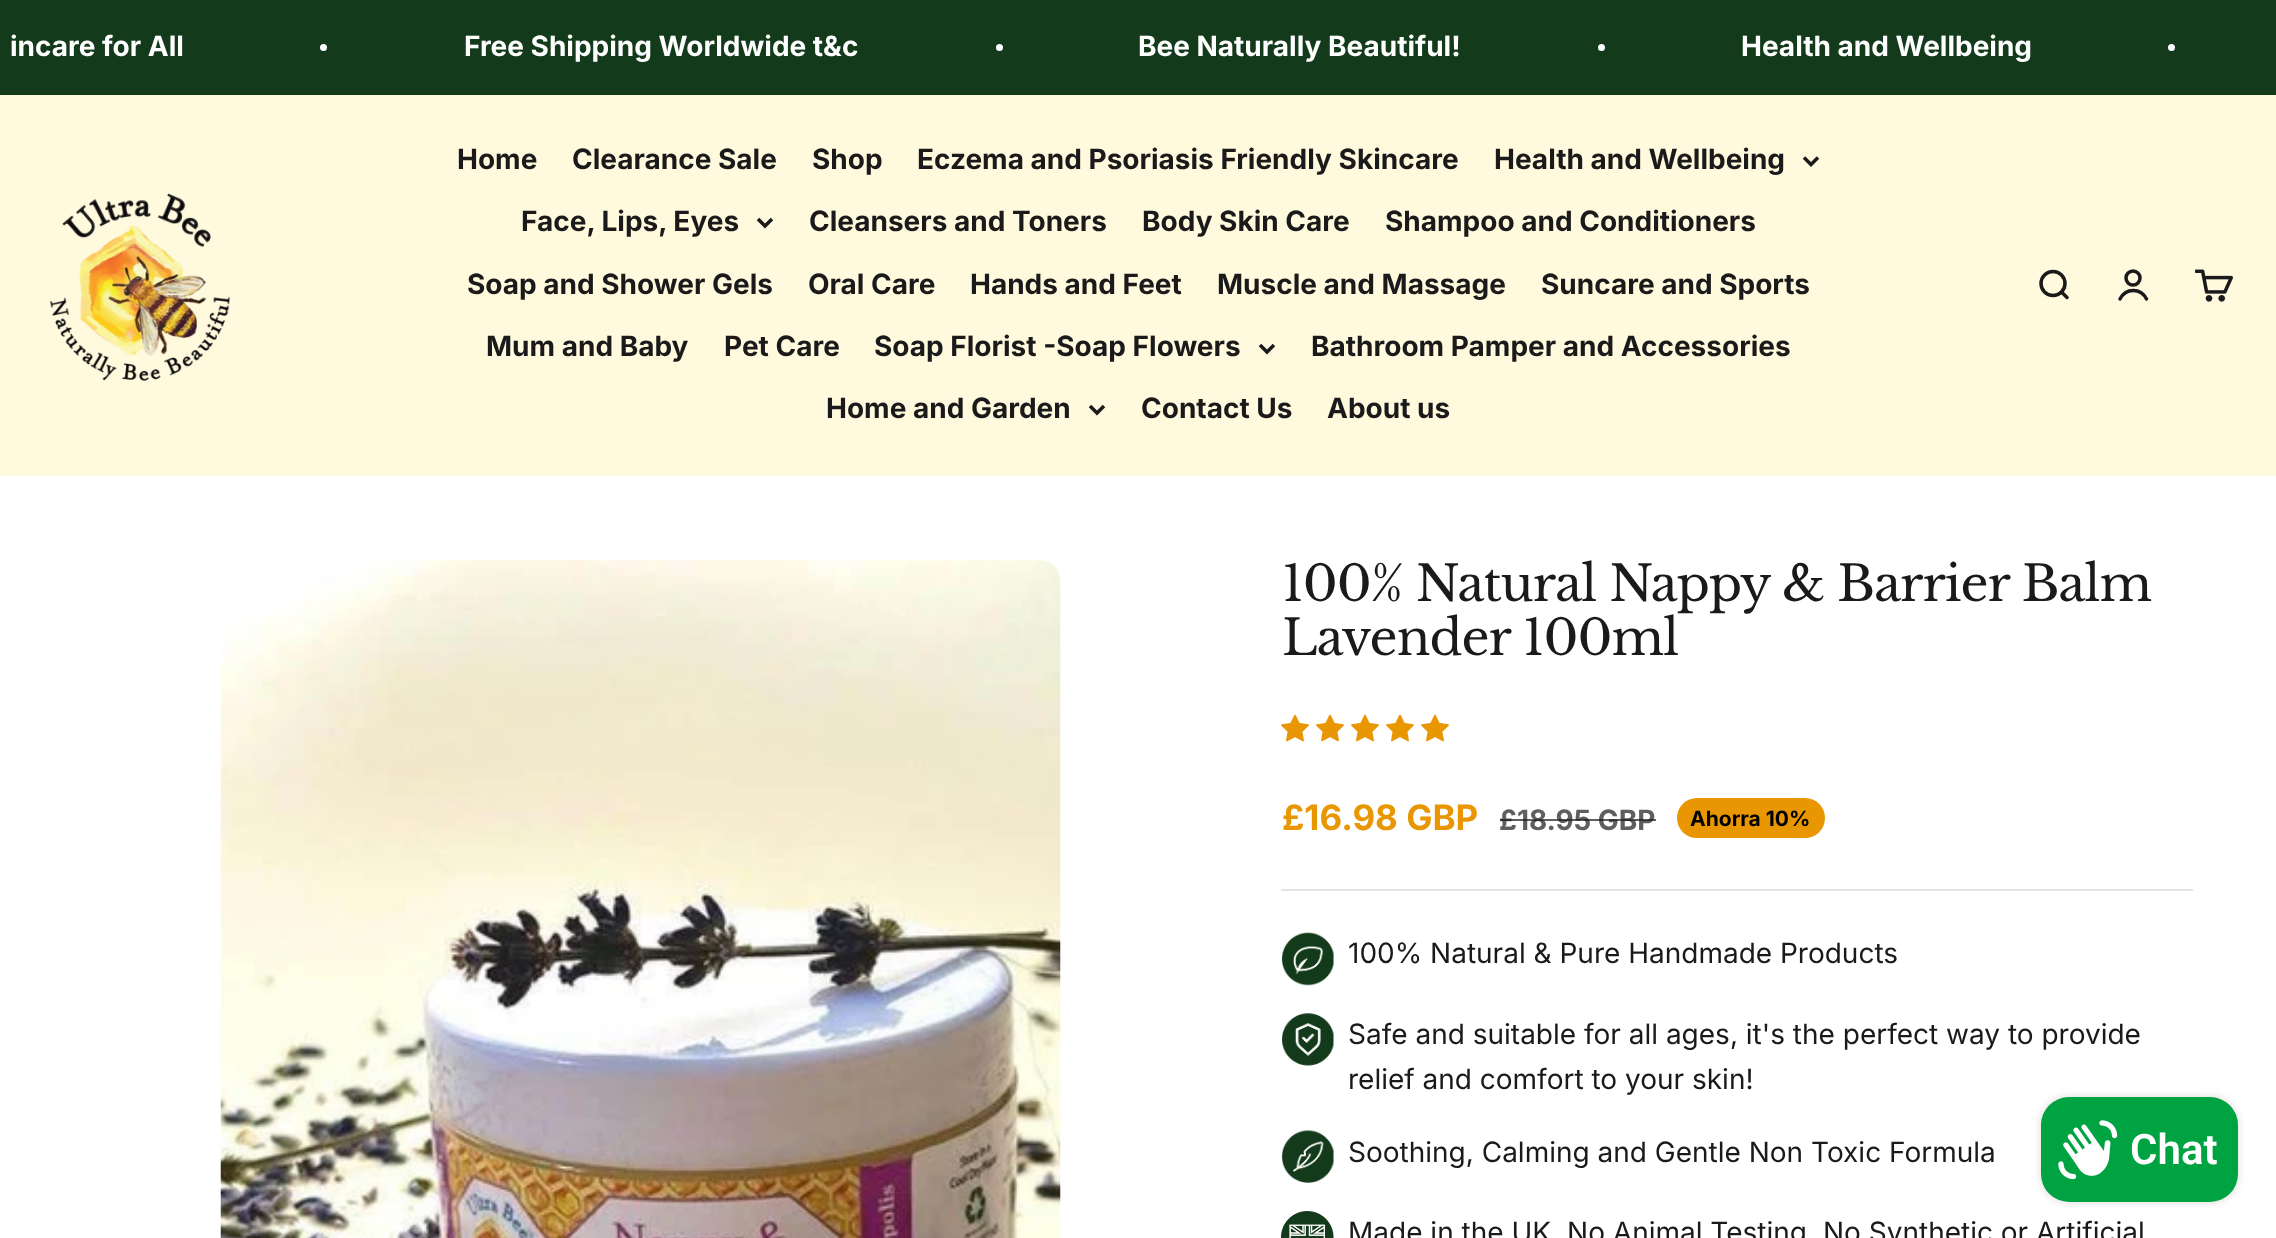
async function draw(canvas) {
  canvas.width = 2276
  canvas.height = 1238
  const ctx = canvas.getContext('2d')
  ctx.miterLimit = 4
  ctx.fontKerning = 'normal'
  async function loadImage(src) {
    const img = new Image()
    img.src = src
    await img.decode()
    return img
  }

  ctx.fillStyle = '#fff'
  ctx.fillRect(0, 0, 2276, 1238)
  ctx.fillStyle = '#133a1a'
  ctx.fillRect(0, 0, 2276, 95)
  ctx.font = 'bold 28px Inter'
  ctx.fillStyle = '#fff'
  ctx.fillText('incare for All', 10, 56)
  ctx.beginPath()
  ctx.arc(323.5, 47.5, 3.5, 0, 2 * Math.PI)
  ctx.fill()
  ctx.fillText('Free Shipping Worldwide t&c', 464, 56)
  ctx.beginPath()
  ctx.arc(999.5, 47.5, 3.5, 0, 2 * Math.PI)
  ctx.fill()
  ctx.fillText('Bee Naturally Beautiful!', 1138, 56)
  ctx.beginPath()
  ctx.arc(1601.5, 47.5, 3.5, 0, 2 * Math.PI)
  ctx.fill()
  ctx.fillText('Health and Wellbeing', 1741, 56)
  ctx.beginPath()
  ctx.arc(2171.5, 47.5, 3.5, 0, 2 * Math.PI)
  ctx.fill()
  ctx.fillStyle = '#fff9de'
  ctx.fillRect(0, 95, 2276, 381)
  ctx.drawImage(await loadImage('image0.png'), 49, 193, 182, 188)
  ctx.fillStyle = '#1a1a1a'
  ctx.fillText('Home', 457, 169)
  ctx.fillText('Clearance Sale', 572, 169)
  ctx.fillText('Shop', 812, 169)
  ctx.fillText('Eczema and Psoriasis Friendly Skincare', 917, 169)
  ctx.fillText('Health and Wellbeing', 1494, 169)
  ctx.beginPath()
  ctx.moveTo(1804, 157.5)
  ctx.lineTo(1811, 164.5)
  ctx.lineTo(1818, 157.5)
  ctx.strokeStyle = '#1a1a1a'
  ctx.lineWidth = 3.5
  ctx.stroke()
  ctx.fillText('Face, Lips, Eyes', 521, 231)
  ctx.beginPath()
  ctx.moveTo(758, 219)
  ctx.lineTo(765, 226)
  ctx.lineTo(772, 219)
  ctx.stroke()
  ctx.fillText('Cleansers and Toners', 809, 231)
  ctx.fillText('Body Skin Care', 1142, 231)
  ctx.fillText('Shampoo and Conditioners', 1385, 231)
  ctx.fillText('Soap and Shower Gels', 467, 294)
  ctx.fillText('Oral Care', 808, 294)
  ctx.fillText('Hands and Feet', 970, 294)
  ctx.fillText('Muscle and Massage', 1217, 294)
  ctx.fillText('Suncare and Sports', 1541, 294)
  ctx.fillText('Mum and Baby', 486, 356)
  ctx.fillText('Pet Care', 724, 356)
  ctx.fillText('Soap Florist -Soap Flowers', 874, 356)
  ctx.beginPath()
  ctx.moveTo(1260, 345)
  ctx.lineTo(1267, 352)
  ctx.lineTo(1274, 345)
  ctx.stroke()
  ctx.fillText('Bathroom Pamper and Accessories', 1311, 356)
  ctx.fillText('Home and Garden', 826, 418)
  ctx.beginPath()
  ctx.moveTo(1090, 406)
  ctx.lineTo(1097, 413)
  ctx.lineTo(1104, 406)
  ctx.stroke()
  ctx.fillText('Contact Us', 1141, 418)
  ctx.fillText('About us', 1327, 418)
  ctx.beginPath()
  ctx.arc(2053, 283.5, 12, 0, 2 * Math.PI)
  ctx.stroke()
  ctx.beginPath()
  ctx.moveTo(2061.5, 292)
  ctx.lineTo(2067, 297.5)
  ctx.lineCap = 'round'
  ctx.lineJoin = 'round'
  ctx.stroke()
  ctx.beginPath()
  ctx.arc(2133, 278, 7, 0, 2 * Math.PI)
  ctx.stroke()
  ctx.beginPath()
  ctx.moveTo(2120, 299)
  ctx.bezierCurveTo(2125.5, 287.5, 2141, 287.5, 2146.5, 299)
  ctx.lineJoin = 'miter'
  ctx.stroke()
  ctx.drawImage(await loadImage('image1.png'), 2195, 269, 38, 33)
  ctx.drawImage(await loadImage('image2.png'), 220, 560, 841, 678)
  ctx.letterSpacing = '-1px'
  ctx.font = '49px Libre Baskerville'
  ctx.fillText('100% Natural Nappy & Barrier Balm', 1282, 601)
  ctx.fillText('Lavender 100ml', 1282, 655)
  ctx.drawImage(await loadImage('image3.png'), 1281, 714, 28, 28)
  ctx.drawImage(await loadImage('image3.png'), 1316, 714, 28, 28)
  ctx.drawImage(await loadImage('image3.png'), 1351, 714, 28, 28)
  ctx.drawImage(await loadImage('image3.png'), 1386, 714, 28, 28)
  ctx.drawImage(await loadImage('image3.png'), 1421, 714, 28, 28)
  ctx.letterSpacing = '0px'
  ctx.font = 'bold 35px Inter'
  ctx.fillStyle = '#e89602'
  ctx.fillText('£16.98 GBP', 1282, 830)
  ctx.font = 'bold 28px Inter'
  ctx.fillStyle = '#5f5f5f'
  ctx.fillText('£18.95 GBP', 1499, 830)
  ctx.fillStyle = '#1a1a1ab3'
  ctx.fillRect(1500, 819, 156, 2)
  ctx.fillStyle = '#e89602'
  ctx.beginPath()
  ctx.roundRect(1677, 798, 148, 40, 20)
  ctx.fill()
  ctx.font = 'bold 21px Inter'
  ctx.fillStyle = '#000'
  ctx.fillText('Ahorra 10%', 1690, 826)
  ctx.fillStyle = '#e4e4e4'
  ctx.fillRect(1281, 889, 912, 2)
  ctx.drawImage(await loadImage('image4.png'), 1282, 932, 52, 54)
  ctx.font = '28px Inter'
  ctx.fillStyle = '#1a1a1a'
  ctx.fillText('100% Natural & Pure Handmade Products', 1348, 963)
  ctx.drawImage(await loadImage('image5.png'), 1282, 1013, 52, 53)
  ctx.fillText('Safe and suitable for all ages, it\'s the perfect way to provide', 1348, 1044)
  ctx.fillText('relief and comfort to your skin!', 1348, 1089)
  ctx.drawImage(await loadImage('image6.png'), 1282, 1130, 52, 53)
  ctx.fillText('Soothing, Calming and Gentle Non Toxic Formula', 1348, 1162)
  ctx.drawImage(await loadImage('image7.png'), 1281, 1211, 53, 27)
  ctx.fillText('Made in the UK, No Animal Testing, No Synthetic or Artificial', 1348, 1242)
  ctx.fillStyle = '#00000026'
  ctx.filter = 'blur(4.5px)'
  ctx.beginPath()
  ctx.roundRect(2041, 1097, 197, 105, 28)
  ctx.fill()
  ctx.filter = 'none'
  ctx.fillStyle = '#00a341'
  ctx.beginPath()
  ctx.roundRect(2041, 1097, 197, 105, 28)
  ctx.fill()
  ctx.drawImage(await loadImage('image8.png'), 2058, 1120, 60, 60)
  ctx.font = '600 42px Roboto'
  ctx.fillStyle = '#fff'
  ctx.fillText('Chat', 2130, 1164)
}

draw(document.querySelector('canvas'))
